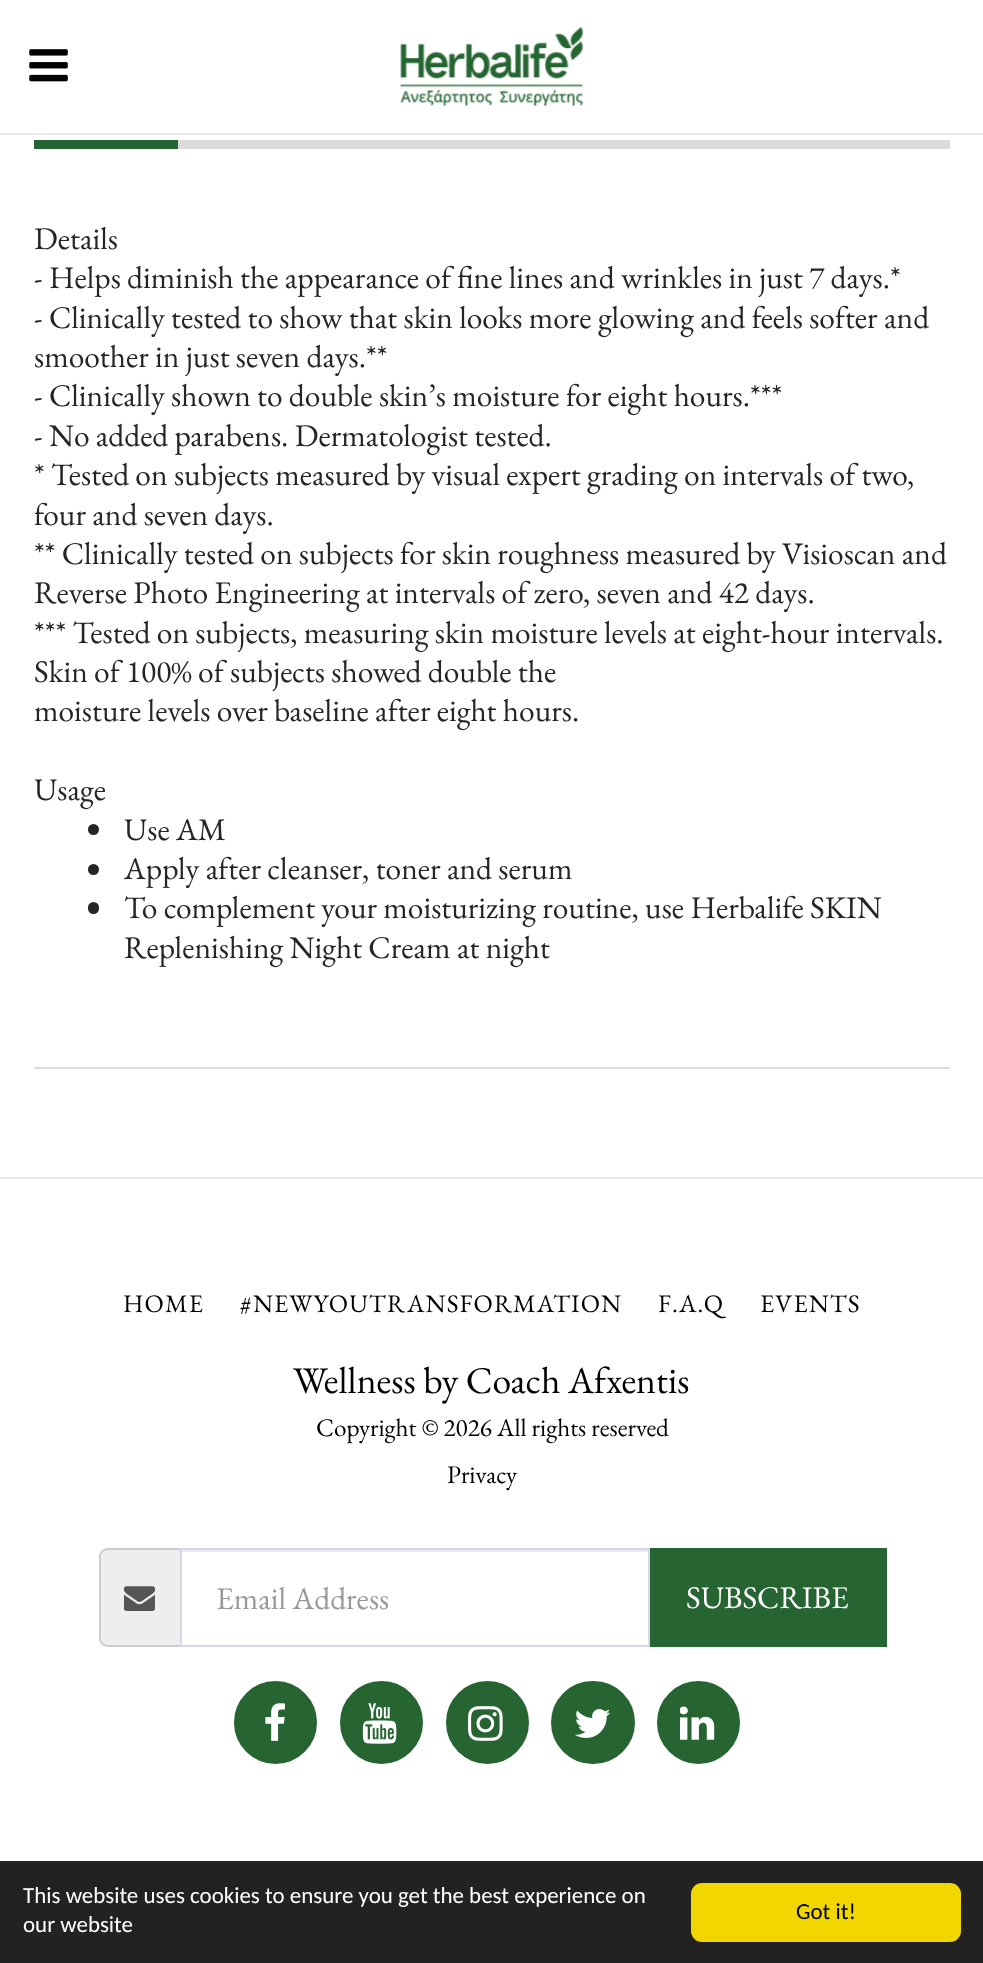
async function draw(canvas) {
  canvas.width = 983
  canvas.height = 1963
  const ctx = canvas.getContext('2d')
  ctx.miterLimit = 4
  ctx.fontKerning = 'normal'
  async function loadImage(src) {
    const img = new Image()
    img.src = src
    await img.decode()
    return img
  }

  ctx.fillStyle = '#fff'
  ctx.fillRect(0, 0, 983, 1963)
  ctx.fillStyle = '#ebebeb'
  ctx.fillRect(0, 133, 983, 2)
  ctx.drawImage(await loadImage('image0.png'), 29, 49, 39, 33)
  ctx.drawImage(await loadImage('image1.png'), 400, 27, 184, 79)
  ctx.fillStyle = '#dbdbdb'
  ctx.fillRect(178, 140, 772, 9)
  ctx.fillStyle = '#266431'
  ctx.fillRect(34, 140, 144, 9)
  ctx.fillStyle = '#dbdbdb'
  ctx.fillRect(34, 1067, 916, 2)
  ctx.font = '31.5px EB Garamond'
  ctx.fillStyle = '#252525'
  ctx.fillText('Details', 34, 249)
  ctx.fillText('- Helps diminish the appearance of fine lines and wrinkles in just 7 days.*', 34, 288)
  ctx.fillText('- Clinically tested to show that skin looks more glowing and feels softer and', 34, 328)
  ctx.fillText('smoother in just seven days.**', 34, 367)
  ctx.fillText('- Clinically shown to double skin’s moisture for eight hours.***', 34, 406)
  ctx.fillText('- No added parabens. Dermatologist tested.', 34, 446)
  ctx.fillText('* Tested on subjects measured by visual expert grading on intervals of two,', 34, 485)
  ctx.fillText('four and seven days.', 34, 525)
  ctx.fillText('** Clinically tested on subjects for skin roughness measured by Visioscan and', 34, 564)
  ctx.fillText('Reverse Photo Engineering at intervals of zero, seven and 42 days.', 34, 603)
  ctx.fillText('*** Tested on subjects, measuring skin moisture levels at eight-hour intervals.', 34, 643)
  ctx.fillText('Skin of 100% of subjects showed double the', 34, 682)
  ctx.fillText('moisture levels over baseline after eight hours.', 34, 721)
  ctx.fillText('Usage', 34, 800)
  ctx.beginPath()
  ctx.arc(93.5, 829.5, 5.5, 0, 2 * Math.PI)
  ctx.fill()
  ctx.fillText('Use AM', 124, 840)
  ctx.beginPath()
  ctx.arc(93.5, 869.5, 5.5, 0, 2 * Math.PI)
  ctx.fill()
  ctx.fillText('Apply after cleanser, toner and serum', 124, 879)
  ctx.beginPath()
  ctx.roundRect(88, 902, 11, 12, 5.5)
  ctx.fill()
  ctx.fillText('To complement your moisturizing routine, use Herbalife SKIN', 124, 918)
  ctx.fillText('Replenishing Night Cream at night', 124, 958)
  ctx.fillStyle = '#ebebeb'
  ctx.fillRect(0, 1177, 983, 2)
  ctx.letterSpacing = '1.1px'
  ctx.font = '25.25px EB Garamond'
  ctx.fillStyle = '#000'
  ctx.fillText('HOME', 123, 1312)
  ctx.fillText('#NEWYOUTRANSFORMATION', 240, 1312)
  ctx.fillText('F.A.Q', 658, 1312)
  ctx.fillText('EVENTS', 760, 1312)
  ctx.letterSpacing = '0px'
  ctx.font = '37.75px EB Garamond'
  ctx.fillText('Wellness by Coach Afxentis', 293, 1393)
  ctx.font = '25.25px EB Garamond'
  ctx.fillText('Copyright © 2026 All rights reserved', 316, 1436)
  ctx.fillText('Privacy', 447, 1483)
  ctx.fillStyle = '#eee'
  ctx.beginPath()
  ctx.roundRect(101, 1550, 79, 95, [7, 0, 0, 7])
  ctx.fill()
  ctx.fillStyle = '#ccc'
  ctx.beginPath()
  ctx.moveTo(108, 1548)
  ctx.lineTo(180, 1548)
  ctx.lineTo(180, 1647)
  ctx.lineTo(108, 1647)
  ctx.bezierCurveTo(103, 1647, 99, 1643, 99, 1638)
  ctx.lineTo(99, 1557)
  ctx.bezierCurveTo(99, 1552, 103, 1548, 108, 1548)
  ctx.closePath()
  ctx.moveTo(108, 1550)
  ctx.lineTo(180, 1550)
  ctx.lineTo(180, 1645)
  ctx.lineTo(108, 1645)
  ctx.bezierCurveTo(104, 1645, 101, 1642, 101, 1638)
  ctx.lineTo(101, 1557)
  ctx.bezierCurveTo(101, 1553, 104, 1550, 108, 1550)
  ctx.closePath()
  ctx.fill('evenodd')
  ctx.drawImage(await loadImage('image2.png'), 124, 1586, 31, 25)
  ctx.fillStyle = '#ececec'
  ctx.fillRect(182, 1550, 466, 2)
  ctx.strokeStyle = '#d4d7e5'
  ctx.lineWidth = 2
  ctx.strokeRect(181, 1549, 468, 97)
  ctx.font = '31.5px EB Garamond'
  ctx.fillStyle = '#999'
  ctx.fillText('Email Address', 216, 1609)
  ctx.fillStyle = '#266431'
  ctx.fillRect(650, 1548, 237, 99)
  ctx.fillStyle = '#fff'
  ctx.fillText('SUBSCRIBE', 686, 1608)
  ctx.fillStyle = '#266431'
  ctx.beginPath()
  ctx.arc(275.5, 1722.5, 40.5, 0, 2 * Math.PI)
  ctx.fill()
  ctx.strokeStyle = '#266431'
  ctx.stroke()
  ctx.drawImage(await loadImage('image3.png'), 265, 1703, 20, 38)
  ctx.beginPath()
  ctx.arc(381.5, 1722.5, 40.5, 0, 2 * Math.PI)
  ctx.fill()
  ctx.stroke()
  ctx.drawImage(await loadImage('image4.png'), 362, 1703, 35, 41)
  ctx.beginPath()
  ctx.arc(487.5, 1722.5, 40.5, 0, 2 * Math.PI)
  ctx.fill()
  ctx.stroke()
  ctx.drawImage(await loadImage('image5.png'), 468, 1706, 35, 35)
  ctx.beginPath()
  ctx.roundRect(552, 1682, 82, 81, 40.5)
  ctx.fill()
  ctx.stroke()
  ctx.drawImage(await loadImage('image6.png'), 575, 1709, 35, 29)
  ctx.beginPath()
  ctx.arc(698.5, 1722.5, 40.5, 0, 2 * Math.PI)
  ctx.fill()
  ctx.stroke()
  ctx.drawImage(await loadImage('image7.png'), 680, 1706, 35, 34)
  ctx.fillStyle = '#222'
  ctx.fillRect(0, 1861, 983, 102)
  ctx.font = '22.95px Carlito'
  ctx.fillStyle = '#fff'
  ctx.fillText('This website uses cookies to ensure you get the best experience on', 23, 1903)
  ctx.fillText('our website', 23, 1932)
  ctx.fillStyle = '#f1d600'
  ctx.beginPath()
  ctx.roundRect(691, 1883, 270, 59, 11)
  ctx.fill()
  ctx.fillStyle = '#000'
  ctx.fillText('Got it!', 796, 1919)
}

draw(document.querySelector('canvas'))
